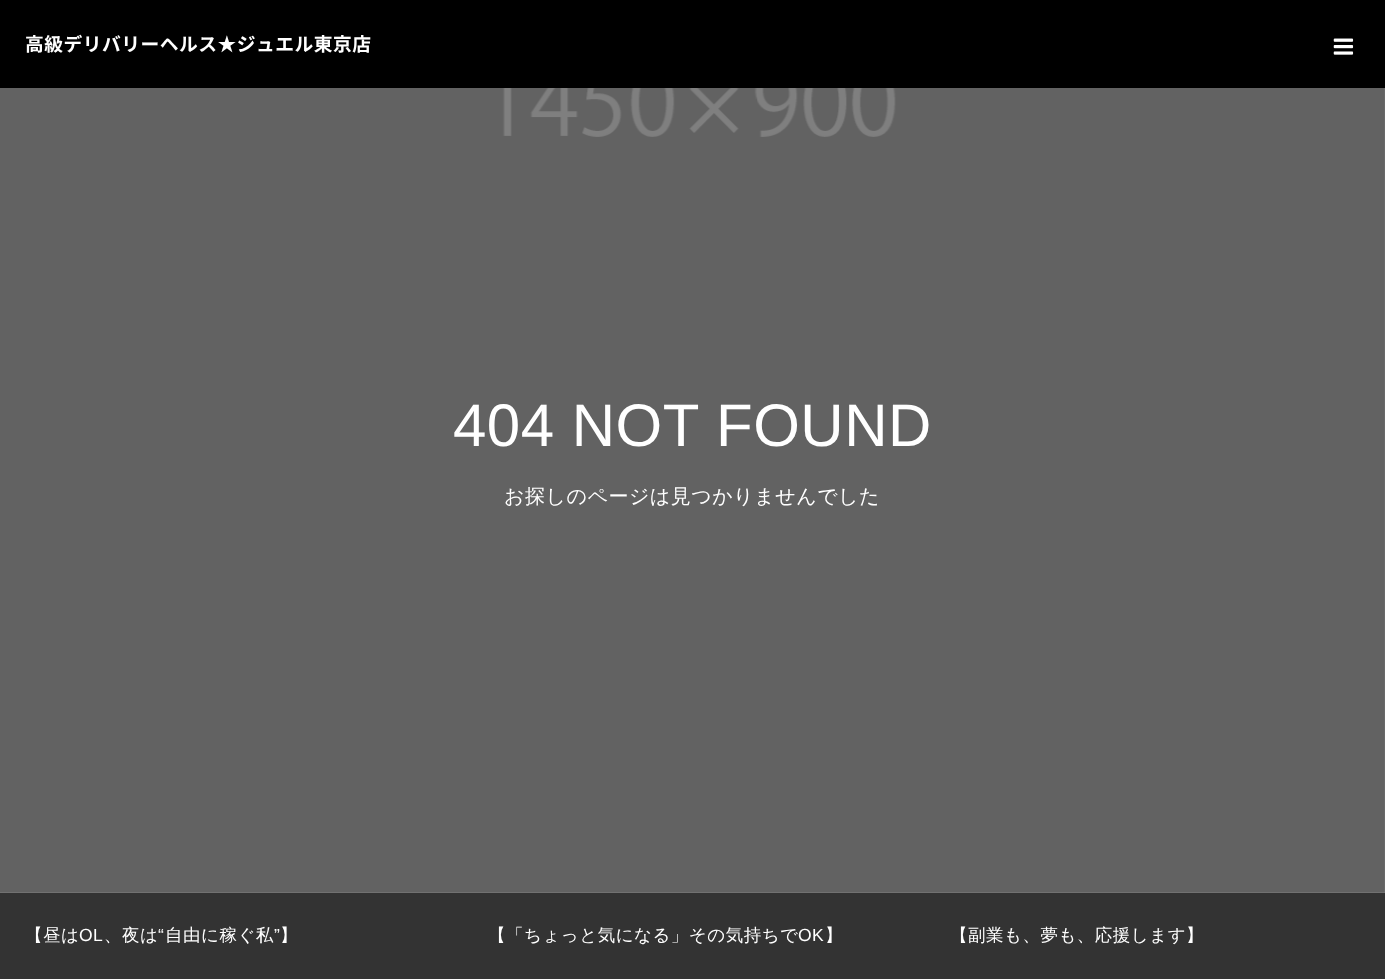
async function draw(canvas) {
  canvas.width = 1385
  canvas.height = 979
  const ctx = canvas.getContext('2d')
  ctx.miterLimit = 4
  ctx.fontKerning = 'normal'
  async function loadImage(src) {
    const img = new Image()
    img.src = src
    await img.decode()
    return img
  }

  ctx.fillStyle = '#808080'
  ctx.fillRect(0, 0, 1385, 979)
  ctx.fillStyle = '#000'
  ctx.fillRect(0, 0, 1385, 88)
  ctx.letterSpacing = '0.5px'
  ctx.font = 'bold 18.75px Noto Sans JP'
  ctx.fillStyle = '#fff'
  ctx.fillText('高級デリバリーヘルス★ジュエル東京店', 25, 51)
  ctx.drawImage(await loadImage('image0.png'), 1333, 38, 21, 17)
  ctx.drawImage(await loadImage('image1.png'), 0, 88, 1385, 805)
  ctx.font = '60px Liberation Sans'
  ctx.fillText('404 NOT FOUND', 453, 446)
  ctx.font = '500 20px WenQuanYi Zen Hei'
  ctx.fillText('お探しのページは見つかりませんでした', 504, 503)
  ctx.fillStyle = '#333'
  ctx.fillRect(0, 893, 1385, 86)
  ctx.font = '500 17.5px WenQuanYi Zen Hei'
  ctx.fillStyle = '#fff'
  ctx.fillText('【昼は', 25, 941)
  ctx.font = '17.5px Liberation Sans'
  ctx.fillText('OL', 79, 941)
  ctx.font = '500 17.5px WenQuanYi Zen Hei'
  ctx.fillText('、夜は', 104, 941)
  ctx.font = '17.5px Liberation Sans'
  ctx.fillText('“', 158, 941)
  ctx.font = '500 17.5px WenQuanYi Zen Hei'
  ctx.fillText('自由に稼ぐ私', 165, 941)
  ctx.font = '17.5px Liberation Sans'
  ctx.fillText('”', 274, 941)
  ctx.font = '500 17.5px WenQuanYi Zen Hei'
  ctx.fillText('】', 280, 941)
  ctx.fillText('【「ちょっと気になる」その気持ちで', 488, 941)
  ctx.font = '17.5px Liberation Sans'
  ctx.fillText('OK', 798, 941)
  ctx.font = '500 17.5px WenQuanYi Zen Hei'
  ctx.fillText('】', 825, 941)
  ctx.fillText('【副業も、夢も、応援します】', 950, 941)
}

draw(document.querySelector('canvas'))
